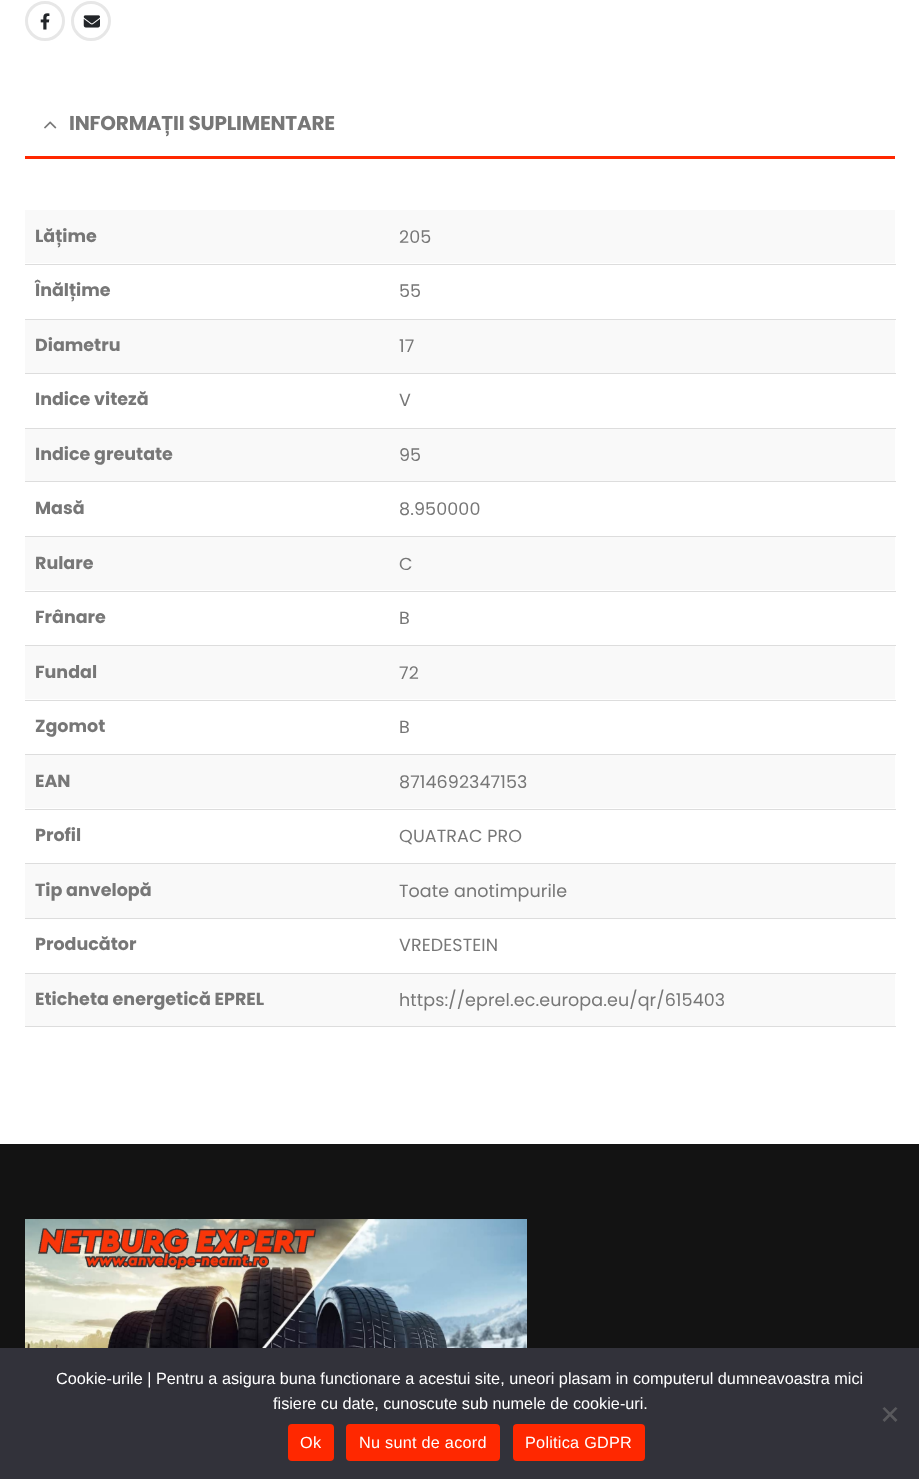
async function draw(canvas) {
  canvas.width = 919
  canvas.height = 1479
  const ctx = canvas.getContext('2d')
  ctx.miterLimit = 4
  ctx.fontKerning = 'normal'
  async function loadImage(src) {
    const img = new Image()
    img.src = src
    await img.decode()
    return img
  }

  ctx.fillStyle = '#fff'
  ctx.fillRect(0, 0, 919, 1479)
  ctx.beginPath()
  ctx.arc(45, 21, 18.5, 0, 2 * Math.PI)
  ctx.strokeStyle = '#e7e7e7'
  ctx.lineWidth = 3
  ctx.stroke()
  ctx.drawImage(await loadImage('image0.png'), 40, 13, 10, 17)
  ctx.beginPath()
  ctx.arc(91, 21, 18.5, 0, 2 * Math.PI)
  ctx.stroke()
  ctx.drawImage(await loadImage('image1.png'), 83, 15, 17, 13)
  ctx.fillStyle = '#ff2800'
  ctx.fillRect(25, 156, 870, 3)
  ctx.drawImage(await loadImage('image2.png'), 44, 121, 13, 8)
  ctx.letterSpacing = '-0.2px'
  ctx.font = 'bold 20px Poppins'
  ctx.fillStyle = '#777'
  ctx.fillText('INFORMAȚII SUPLIMENTARE', 69, 130)
  ctx.fillStyle = '#f9f9f9'
  ctx.fillRect(25, 210, 870, 53)
  ctx.letterSpacing = '0px'
  ctx.font = 'bold 17.5px Poppins'
  ctx.fillStyle = '#777'
  ctx.fillText('Lățime', 35, 242)
  ctx.fillStyle = '#ddd'
  ctx.fillRect(25, 264, 871, 1)
  ctx.letterSpacing = '0.1px'
  ctx.font = '17.5px Poppins'
  ctx.fillStyle = '#777'
  ctx.fillText('205', 399, 243)
  ctx.letterSpacing = '0px'
  ctx.font = 'bold 17.5px Poppins'
  ctx.fillText('Înălțime', 35, 296)
  ctx.fillStyle = '#ddd'
  ctx.fillRect(25, 319, 871, 1)
  ctx.letterSpacing = '0.1px'
  ctx.font = '17.5px Poppins'
  ctx.fillStyle = '#777'
  ctx.fillText('55', 399, 297)
  ctx.fillStyle = '#f9f9f9'
  ctx.fillRect(25, 320, 870, 53)
  ctx.letterSpacing = '0px'
  ctx.font = 'bold 17.5px Poppins'
  ctx.fillStyle = '#777'
  ctx.fillText('Diametru', 35, 351)
  ctx.fillStyle = '#ddd'
  ctx.fillRect(25, 373, 871, 1)
  ctx.letterSpacing = '0.1px'
  ctx.font = '17.5px Poppins'
  ctx.fillStyle = '#777'
  ctx.fillText('17', 399, 352)
  ctx.letterSpacing = '0px'
  ctx.font = 'bold 17.5px Poppins'
  ctx.fillText('Indice viteză', 35, 405)
  ctx.fillStyle = '#ddd'
  ctx.fillRect(25, 428, 871, 1)
  ctx.letterSpacing = '0.1px'
  ctx.font = '17.5px Poppins'
  ctx.fillStyle = '#777'
  ctx.fillText('V', 399, 406)
  ctx.fillStyle = '#f9f9f9'
  ctx.fillRect(25, 429, 870, 52)
  ctx.letterSpacing = '0px'
  ctx.font = 'bold 17.5px Poppins'
  ctx.fillStyle = '#777'
  ctx.fillText('Indice greutate', 35, 460)
  ctx.fillStyle = '#ddd'
  ctx.fillRect(25, 481, 871, 1)
  ctx.letterSpacing = '0.1px'
  ctx.font = '17.5px Poppins'
  ctx.fillStyle = '#777'
  ctx.fillText('95', 399, 461)
  ctx.letterSpacing = '0px'
  ctx.font = 'bold 17.5px Poppins'
  ctx.fillText('Masă', 35, 514)
  ctx.fillStyle = '#ddd'
  ctx.fillRect(25, 536, 871, 1)
  ctx.letterSpacing = '0.1px'
  ctx.font = '17.5px Poppins'
  ctx.fillStyle = '#777'
  ctx.fillText('8.950000', 399, 515)
  ctx.fillStyle = '#f9f9f9'
  ctx.fillRect(25, 537, 870, 53)
  ctx.letterSpacing = '0px'
  ctx.font = 'bold 17.5px Poppins'
  ctx.fillStyle = '#777'
  ctx.fillText('Rulare', 35, 569)
  ctx.fillStyle = '#ddd'
  ctx.fillRect(25, 591, 871, 1)
  ctx.letterSpacing = '0.1px'
  ctx.font = '17.5px Poppins'
  ctx.fillStyle = '#777'
  ctx.fillText('C', 399, 570)
  ctx.letterSpacing = '0px'
  ctx.font = 'bold 17.5px Poppins'
  ctx.fillText('Frânare', 35, 623)
  ctx.fillStyle = '#ddd'
  ctx.fillRect(25, 645, 871, 1)
  ctx.letterSpacing = '0.1px'
  ctx.font = '17.5px Poppins'
  ctx.fillStyle = '#777'
  ctx.fillText('B', 399, 624)
  ctx.fillStyle = '#f9f9f9'
  ctx.fillRect(25, 646, 870, 53)
  ctx.letterSpacing = '0px'
  ctx.font = 'bold 17.5px Poppins'
  ctx.fillStyle = '#777'
  ctx.fillText('Fundal', 35, 678)
  ctx.fillStyle = '#ddd'
  ctx.fillRect(25, 700, 871, 1)
  ctx.letterSpacing = '0.1px'
  ctx.font = '17.5px Poppins'
  ctx.fillStyle = '#777'
  ctx.fillText('72', 399, 679)
  ctx.letterSpacing = '0px'
  ctx.font = 'bold 17.5px Poppins'
  ctx.fillText('Zgomot', 35, 732)
  ctx.fillStyle = '#ddd'
  ctx.fillRect(25, 754, 871, 1)
  ctx.letterSpacing = '0.1px'
  ctx.font = '17.5px Poppins'
  ctx.fillStyle = '#777'
  ctx.fillText('B', 399, 733)
  ctx.fillStyle = '#f9f9f9'
  ctx.fillRect(25, 755, 870, 53)
  ctx.letterSpacing = '0px'
  ctx.font = 'bold 17.5px Poppins'
  ctx.fillStyle = '#777'
  ctx.fillText('EAN', 35, 787)
  ctx.fillStyle = '#ddd'
  ctx.fillRect(25, 809, 871, 1)
  ctx.letterSpacing = '0.1px'
  ctx.font = '17.5px Poppins'
  ctx.fillStyle = '#777'
  ctx.fillText('8714692347153', 399, 788)
  ctx.letterSpacing = '0px'
  ctx.font = 'bold 17.5px Poppins'
  ctx.fillText('Profil', 35, 841)
  ctx.fillStyle = '#ddd'
  ctx.fillRect(25, 863, 871, 1)
  ctx.letterSpacing = '0.1px'
  ctx.font = '17.5px Poppins'
  ctx.fillStyle = '#777'
  ctx.fillText('QUATRAC PRO', 399, 842)
  ctx.fillStyle = '#f9f9f9'
  ctx.fillRect(25, 864, 870, 54)
  ctx.letterSpacing = '0px'
  ctx.font = 'bold 17.5px Poppins'
  ctx.fillStyle = '#777'
  ctx.fillText('Tip anvelopă', 35, 896)
  ctx.fillStyle = '#ddd'
  ctx.fillRect(25, 918, 871, 1)
  ctx.letterSpacing = '0.1px'
  ctx.font = '17.5px Poppins'
  ctx.fillStyle = '#777'
  ctx.fillText('Toate anotimpurile', 399, 897)
  ctx.letterSpacing = '0px'
  ctx.font = 'bold 17.5px Poppins'
  ctx.fillText('Producător', 35, 950)
  ctx.fillStyle = '#ddd'
  ctx.fillRect(25, 973, 871, 1)
  ctx.letterSpacing = '0.1px'
  ctx.font = '17.5px Poppins'
  ctx.fillStyle = '#777'
  ctx.fillText('VREDESTEIN', 399, 951)
  ctx.fillStyle = '#f9f9f9'
  ctx.fillRect(25, 974, 870, 52)
  ctx.letterSpacing = '0px'
  ctx.font = 'bold 17.5px Poppins'
  ctx.fillStyle = '#777'
  ctx.fillText('Eticheta energetică EPREL', 35, 1005)
  ctx.fillStyle = '#ddd'
  ctx.fillRect(25, 1026, 871, 1)
  ctx.letterSpacing = '0.1px'
  ctx.font = '17.5px Poppins'
  ctx.fillStyle = '#777'
  ctx.fillText('https://eprel.ec.europa.eu/qr/615403', 399, 1006)
  ctx.fillStyle = '#131313'
  ctx.fillRect(0, 1144, 919, 204)
  ctx.drawImage(await loadImage('image3.png'), 25, 1219, 502, 129)
  ctx.fillStyle = '#32323a'
  ctx.fillRect(0, 1348, 919, 131)
  ctx.letterSpacing = '0px'
  ctx.font = '16.25px Liberation Sans'
  ctx.fillStyle = '#fff'
  ctx.fillText('Cookie-urile | Pentru a asigura buna functionare a acestui site, uneori plasam in computerul dumneavoastra mici', 56, 1384)
  ctx.fillText('fisiere cu date, cunoscute sub numele de cookie-uri.', 273, 1409)
  ctx.fillStyle = '#59595d'
  ctx.beginPath()
  ctx.moveTo(895.5, 1407)
  ctx.lineTo(897.5, 1408.5)
  ctx.lineTo(884.5, 1422)
  ctx.lineTo(882.5, 1420)
  ctx.closePath()
  ctx.fill()
  ctx.beginPath()
  ctx.moveTo(882.5, 1408.5)
  ctx.lineTo(884.5, 1407)
  ctx.lineTo(897.5, 1420)
  ctx.lineTo(895.5, 1422)
  ctx.closePath()
  ctx.fill()
  ctx.fillStyle = '#ff2800'
  ctx.beginPath()
  ctx.roundRect(288, 1424, 46, 37, 4)
  ctx.fill()
  ctx.letterSpacing = '0.25px'
  ctx.fillStyle = '#fff'
  ctx.fillText('Ok', 300, 1448)
  ctx.fillStyle = '#ff2800'
  ctx.beginPath()
  ctx.roundRect(346, 1424, 154, 37, 4)
  ctx.fill()
  ctx.fillStyle = '#fff'
  ctx.fillText('Nu sunt de acord', 359, 1448)
  ctx.fillStyle = '#ff2800'
  ctx.beginPath()
  ctx.roundRect(513, 1424, 132, 37, 4)
  ctx.fill()
  ctx.fillStyle = '#fff'
  ctx.fillText('Politica GDPR', 525, 1448)
}

draw(document.querySelector('canvas'))
